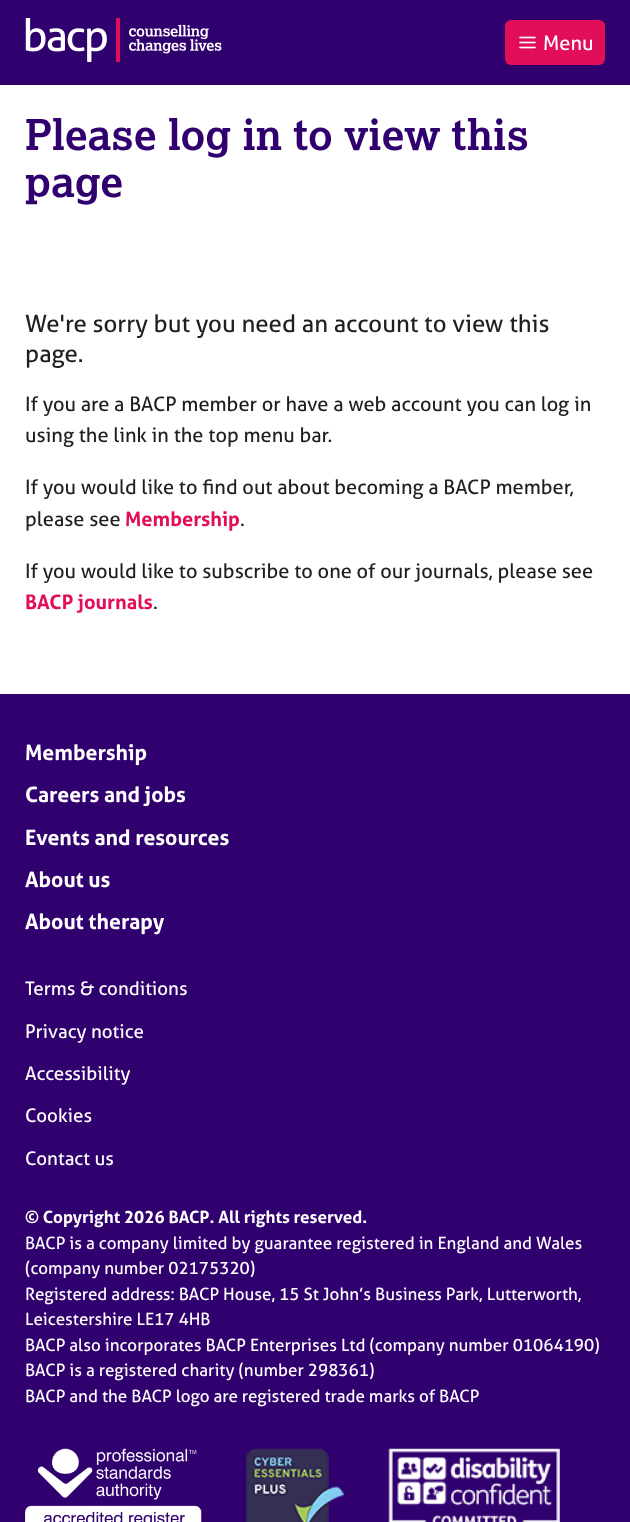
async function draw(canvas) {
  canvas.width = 630
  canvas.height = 1522
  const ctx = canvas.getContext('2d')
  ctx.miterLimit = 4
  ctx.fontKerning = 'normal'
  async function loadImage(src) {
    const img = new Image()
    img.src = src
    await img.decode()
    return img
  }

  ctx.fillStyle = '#fff'
  ctx.fillRect(0, 0, 630, 1522)
  ctx.fillStyle = '#31006f'
  ctx.fillRect(0, 0, 630, 85)
  ctx.drawImage(await loadImage('image0.png'), 25, 18, 197, 45)
  ctx.fillStyle = '#e20e5a'
  ctx.beginPath()
  ctx.roundRect(505, 20, 100, 45, 6)
  ctx.fill()
  ctx.drawImage(await loadImage('image1.png'), 519, 36, 17, 13)
  ctx.font = '20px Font'
  ctx.fillStyle = '#fff'
  ctx.fillText('Menu', 543, 50)
  ctx.font = 'bold 42.4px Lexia'
  ctx.fillStyle = '#31006f'
  ctx.fillText('Please log in to view this', 25, 150)
  ctx.fillText('page', 25, 197)
  ctx.font = '24px Font'
  ctx.fillStyle = '#1f1f20'
  ctx.fillText('We\'re sorry but you need an account to view this', 25, 332)
  ctx.fillText('page.', 25, 362)
  ctx.font = '20px Font'
  ctx.fillText('If you are a BACP member or have a web account you can log in', 25, 411)
  ctx.fillText('using the link in the top menu bar.', 25, 442)
  ctx.fillText('If you would like to find out about becoming a BACP member,', 25, 494)
  ctx.fillText('please see', 25, 526)
  ctx.font = 'bold 20px Font'
  ctx.fillStyle = '#e20e5a'
  ctx.fillText('Membership', 125, 526)
  ctx.font = '20px Font'
  ctx.fillStyle = '#1f1f20'
  ctx.fillText('.', 240, 526)
  ctx.fillText('If you would like to subscribe to one of our journals, please see', 25, 578)
  ctx.font = 'bold 20px Font'
  ctx.fillStyle = '#e20e5a'
  ctx.fillText('BACP journals', 25, 609)
  ctx.font = '20px Font'
  ctx.fillStyle = '#1f1f20'
  ctx.fillText('.', 153, 609)
  ctx.fillStyle = '#31006f'
  ctx.fillRect(0, 694, 630, 828)
  ctx.font = 'bold 21.25px Font'
  ctx.fillStyle = '#fff'
  ctx.fillText('Membership', 25, 760)
  ctx.fillText('Careers and jobs', 25, 802)
  ctx.fillText('Events and resources', 25, 845)
  ctx.fillText('About us', 25, 887)
  ctx.fillText('About therapy', 25, 929)
  ctx.font = '18.75px Font'
  ctx.fillText('Terms & conditions', 25, 995)
  ctx.fillText('Privacy notice', 25, 1038)
  ctx.fillText('Accessibility', 25, 1080)
  ctx.fillText('Cookies', 25, 1122)
  ctx.fillText('Contact us', 25, 1165)
  ctx.font = 'bold 17px Font'
  ctx.fillText('© Copyright 2026 BACP. All rights reserved.', 25, 1223)
  ctx.font = '17px Font'
  ctx.fillText('BACP is a company limited by guarantee registered in England and Wales', 25, 1249)
  ctx.fillText('(company number 02175320)', 25, 1274)
  ctx.fillText('Registered address: BACP House, 15 St John’s Business Park, Lutterworth,', 25, 1300)
  ctx.fillText('Leicestershire LE17 4HB', 25, 1325)
  ctx.fillText('BACP also incorporates BACP Enterprises Ltd (company number 01064190)', 25, 1351)
  ctx.fillText('BACP is a registered charity (number 298361)', 25, 1376)
  ctx.fillText('BACP and the BACP logo are registered trade marks of BACP', 25, 1402)
  ctx.drawImage(await loadImage('image2.png'), 25, 1448, 177, 74)
  ctx.drawImage(await loadImage('image3.png'), 246, 1448, 98, 74)
  ctx.drawImage(await loadImage('image4.png'), 388, 1448, 172, 74)
}

draw(document.querySelector('canvas'))
